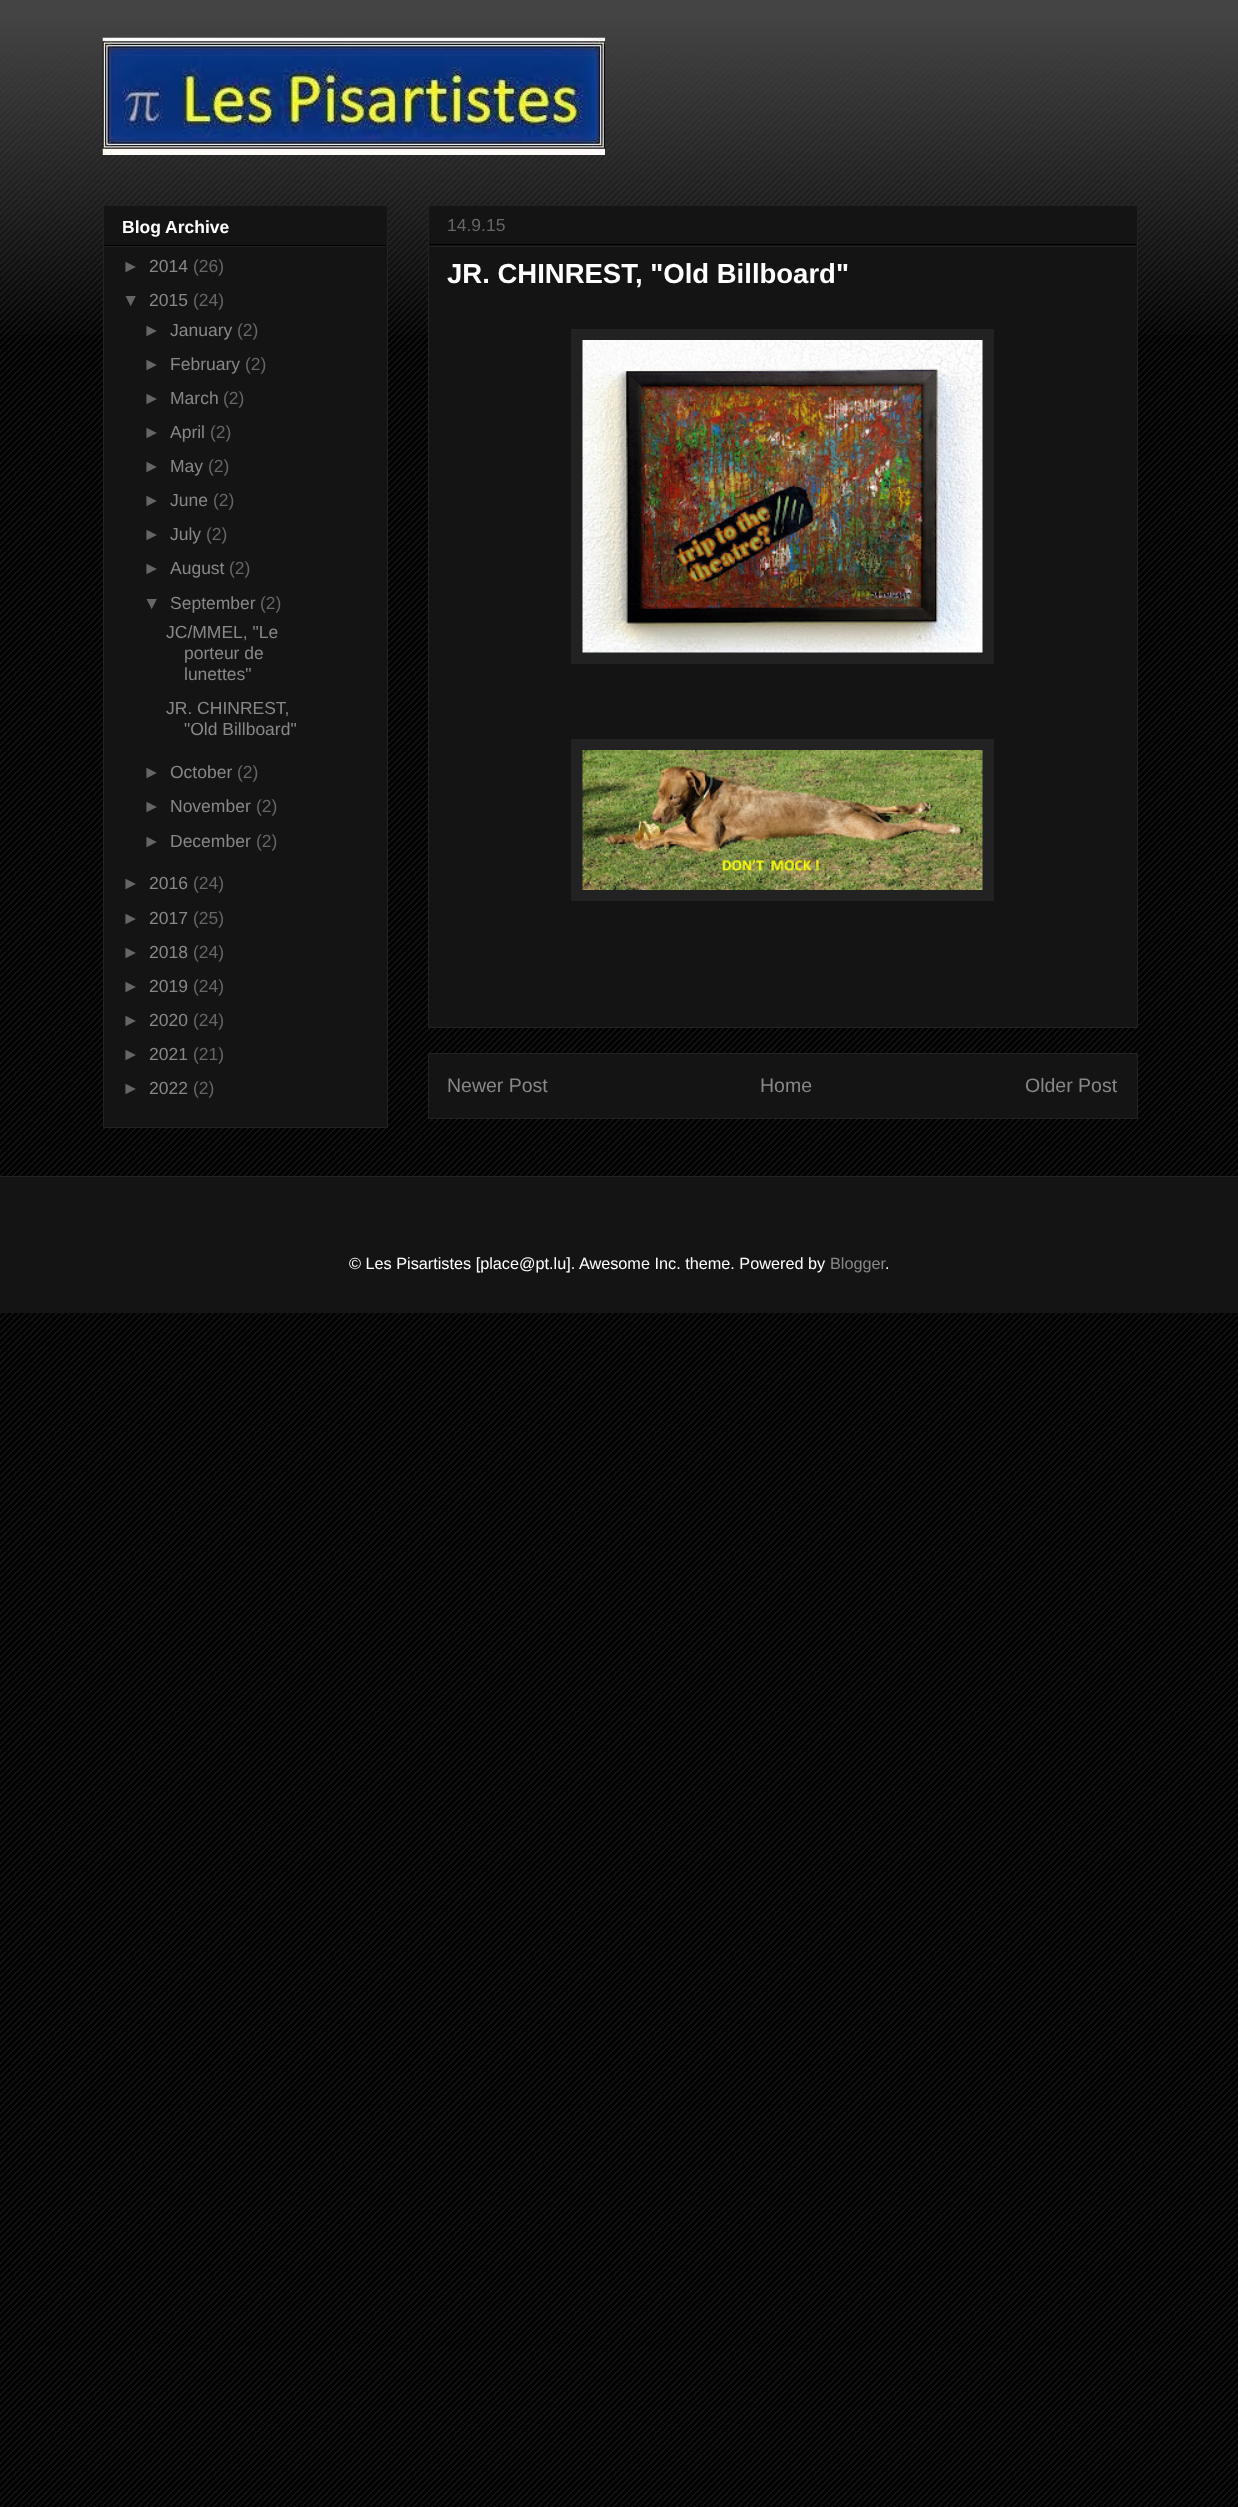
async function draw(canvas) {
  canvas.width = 1238
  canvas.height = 2507
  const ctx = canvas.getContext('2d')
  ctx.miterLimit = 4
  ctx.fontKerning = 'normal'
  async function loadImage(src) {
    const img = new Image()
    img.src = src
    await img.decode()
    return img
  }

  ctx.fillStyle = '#000'
  ctx.fillRect(0, 0, 1238, 2507)
  ctx.drawImage(await loadImage('image0.png'), 0, 16, 1238, 2491)
  ctx.drawImage(await loadImage('image1.png'), 0, 0, 1238, 335)
  ctx.drawImage(await loadImage('image2.png'), 102, 37, 503, 118)
  ctx.fillStyle = '#141414'
  ctx.beginPath()
  ctx.rect(103.5, 205.5, 284, 922)
  ctx.fill()
  ctx.strokeStyle = '#222'
  ctx.stroke()
  ctx.fillStyle = '#000'
  ctx.fillRect(104, 245, 282, 1)
  ctx.font = 'bold 17.5px Liberation Sans'
  ctx.fillStyle = '#fff'
  ctx.fillText('Blog Archive', 122, 233)
  ctx.fillStyle = '#222'
  ctx.fillRect(104, 246, 282, 1)
  ctx.font = '17.5px Liberation Sans'
  ctx.fillStyle = '#666'
  ctx.fillText('►', 122, 272)
  ctx.fillStyle = '#888'
  ctx.fillText('2014', 149, 272)
  ctx.fillStyle = '#666'
  ctx.fillText('(26)', 193, 272)
  ctx.fillText('▼', 122, 306)
  ctx.fillStyle = '#888'
  ctx.fillText('2015', 149, 306)
  ctx.fillStyle = '#666'
  ctx.fillText('(24)', 193, 306)
  ctx.fillText('►', 143, 336)
  ctx.fillStyle = '#888'
  ctx.fillText('January', 170, 336)
  ctx.fillStyle = '#666'
  ctx.fillText('(2)', 237, 336)
  ctx.fillText('►', 143, 370)
  ctx.fillStyle = '#888'
  ctx.fillText('February', 170, 370)
  ctx.fillStyle = '#666'
  ctx.fillText('(2)', 245, 370)
  ctx.fillText('►', 143, 404)
  ctx.fillStyle = '#888'
  ctx.fillText('March', 170, 404)
  ctx.fillStyle = '#666'
  ctx.fillText('(2)', 223, 404)
  ctx.fillText('►', 143, 438)
  ctx.fillStyle = '#888'
  ctx.fillText('April', 170, 438)
  ctx.fillStyle = '#666'
  ctx.fillText('(2)', 210, 438)
  ctx.fillText('►', 143, 472)
  ctx.fillStyle = '#888'
  ctx.fillText('May', 170, 472)
  ctx.fillStyle = '#666'
  ctx.fillText('(2)', 208, 472)
  ctx.fillText('►', 143, 506)
  ctx.fillStyle = '#888'
  ctx.fillText('June', 170, 506)
  ctx.fillStyle = '#666'
  ctx.fillText('(2)', 213, 506)
  ctx.fillText('►', 143, 540)
  ctx.fillStyle = '#888'
  ctx.fillText('July', 170, 540)
  ctx.fillStyle = '#666'
  ctx.fillText('(2)', 206, 540)
  ctx.fillText('►', 143, 574)
  ctx.fillStyle = '#888'
  ctx.fillText('August', 170, 574)
  ctx.fillStyle = '#666'
  ctx.fillText('(2)', 229, 574)
  ctx.fillText('▼', 143, 609)
  ctx.fillStyle = '#888'
  ctx.fillText('September', 170, 609)
  ctx.fillStyle = '#666'
  ctx.fillText('(2)', 260, 609)
  ctx.fillStyle = '#888'
  ctx.fillText('JC/MMEL, "Le', 166, 638)
  ctx.fillText('porteur de', 184, 659)
  ctx.fillText('lunettes"', 184, 680)
  ctx.fillText('JR. CHINREST,', 166, 714)
  ctx.fillText('"Old Billboard"', 184, 735)
  ctx.fillStyle = '#666'
  ctx.fillText('►', 143, 778)
  ctx.fillStyle = '#888'
  ctx.fillText('October', 170, 778)
  ctx.fillStyle = '#666'
  ctx.fillText('(2)', 237, 778)
  ctx.fillText('►', 143, 812)
  ctx.fillStyle = '#888'
  ctx.fillText('November', 170, 812)
  ctx.fillStyle = '#666'
  ctx.fillText('(2)', 256, 812)
  ctx.fillText('►', 143, 847)
  ctx.fillStyle = '#888'
  ctx.fillText('December', 170, 847)
  ctx.fillStyle = '#666'
  ctx.fillText('(2)', 256, 847)
  ctx.fillText('►', 122, 889)
  ctx.fillStyle = '#888'
  ctx.fillText('2016', 149, 889)
  ctx.fillStyle = '#666'
  ctx.fillText('(24)', 193, 889)
  ctx.fillText('►', 122, 924)
  ctx.fillStyle = '#888'
  ctx.fillText('2017', 149, 924)
  ctx.fillStyle = '#666'
  ctx.fillText('(25)', 193, 924)
  ctx.fillText('►', 122, 958)
  ctx.fillStyle = '#888'
  ctx.fillText('2018', 149, 958)
  ctx.fillStyle = '#666'
  ctx.fillText('(24)', 193, 958)
  ctx.fillText('►', 122, 992)
  ctx.fillStyle = '#888'
  ctx.fillText('2019', 149, 992)
  ctx.fillStyle = '#666'
  ctx.fillText('(24)', 193, 992)
  ctx.fillText('►', 122, 1026)
  ctx.fillStyle = '#888'
  ctx.fillText('2020', 149, 1026)
  ctx.fillStyle = '#666'
  ctx.fillText('(24)', 193, 1026)
  ctx.fillText('►', 122, 1060)
  ctx.fillStyle = '#888'
  ctx.fillText('2021', 149, 1060)
  ctx.fillStyle = '#666'
  ctx.fillText('(21)', 193, 1060)
  ctx.fillText('►', 122, 1094)
  ctx.fillStyle = '#888'
  ctx.fillText('2022', 149, 1094)
  ctx.fillStyle = '#666'
  ctx.fillText('(2)', 193, 1094)
  ctx.fillStyle = '#141414'
  ctx.beginPath()
  ctx.rect(428.5, 205.5, 709, 822)
  ctx.fill()
  ctx.stroke()
  ctx.fillStyle = '#000'
  ctx.fillRect(429, 244, 707, 1)
  ctx.fillStyle = '#666'
  ctx.fillText('14.9.15', 447, 231)
  ctx.fillStyle = '#222'
  ctx.fillRect(429, 246, 707, 1)
  ctx.font = 'bold 27.5px Liberation Sans'
  ctx.fillStyle = '#fff'
  ctx.fillText('JR. CHINREST, "Old Billboard"', 447, 283)
  ctx.fillStyle = '#222'
  ctx.fillRect(571, 329, 423, 335)
  ctx.drawImage(await loadImage('image3.png'), 582, 340, 401, 313)
  ctx.fillRect(571, 739, 423, 162)
  ctx.drawImage(await loadImage('image4.png'), 582, 750, 401, 140)
  ctx.fillStyle = '#141414'
  ctx.beginPath()
  ctx.rect(428.5, 1053.5, 709, 65)
  ctx.fill()
  ctx.stroke()
  ctx.font = '19.5px Liberation Sans'
  ctx.fillStyle = '#888'
  ctx.fillText('Newer Post', 447, 1092)
  ctx.fillText('Home', 760, 1092)
  ctx.fillText('Older Post', 1025, 1092)
  ctx.fillStyle = '#141414'
  ctx.fillRect(0, 1177, 1238, 136)
  ctx.fillStyle = '#222'
  ctx.fillRect(0, 1176, 1238, 1)
  ctx.font = '16.25px Liberation Sans'
  ctx.fillStyle = '#fff'
  ctx.fillText('© Les Pisartistes [place@pt.lu]. Awesome Inc. theme. Powered by', 349, 1269)
  ctx.fillStyle = '#888'
  ctx.fillText('Blogger', 830, 1269)
  ctx.fillStyle = '#fff'
  ctx.fillText('.', 885, 1269)
}

draw(document.querySelector('canvas'))
